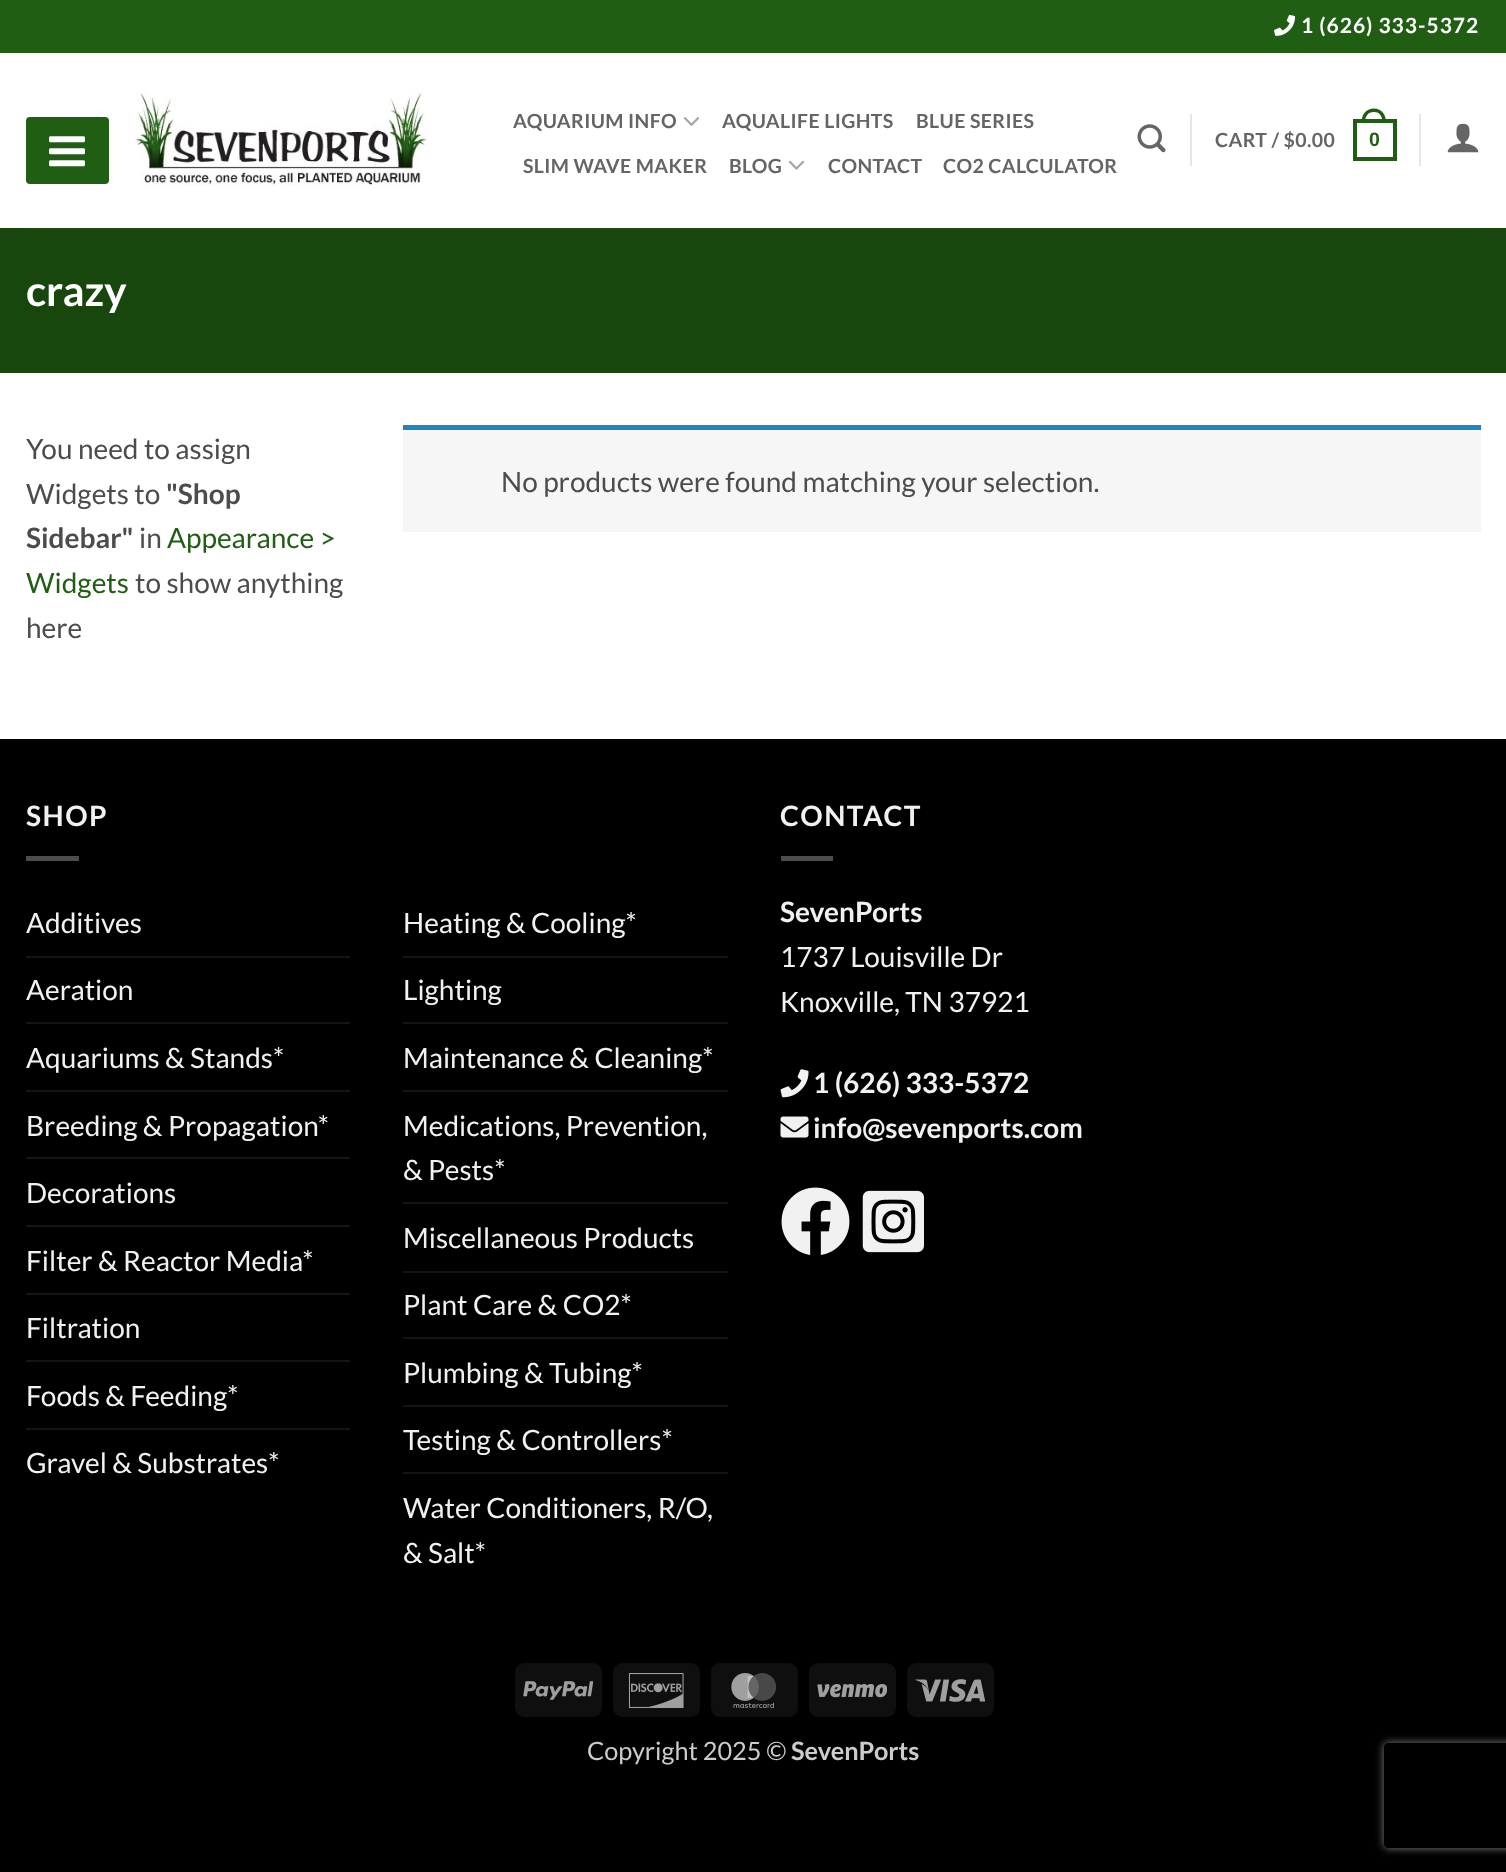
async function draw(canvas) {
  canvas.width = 1506
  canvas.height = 1872
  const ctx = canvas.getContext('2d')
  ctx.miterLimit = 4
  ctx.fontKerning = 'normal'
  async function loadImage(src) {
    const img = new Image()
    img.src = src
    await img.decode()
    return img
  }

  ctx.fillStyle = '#000'
  ctx.fillRect(0, 0, 1506, 1872)
  ctx.fillStyle = '#fff'
  ctx.fillRect(0, 53, 1506, 686)
  ctx.fillStyle = '#205e13'
  ctx.fillRect(0, 0, 1506, 53)
  ctx.drawImage(await loadImage('image0.png'), 1274, 14, 21, 22)
  ctx.letterSpacing = '1px'
  ctx.font = 'bold 21px Lato'
  ctx.fillStyle = '#fff'
  ctx.fillText('1 (626) 333-5372', 1301, 33)
  ctx.fillStyle = '#205e13'
  ctx.beginPath()
  ctx.roundRect(26, 117, 83, 67, 4)
  ctx.fill()
  ctx.drawImage(await loadImage('image1.png'), 49, 136, 36, 31)
  ctx.drawImage(await loadImage('image2.png'), 135, 92, 292, 95)
  ctx.letterSpacing = '0.4px'
  ctx.font = 'bold 19.5px Lato'
  ctx.fillStyle = '#656565'
  ctx.fillText('AQUARIUM INFO', 513, 128)
  ctx.drawImage(await loadImage('image3.png'), 683, 117, 17, 9)
  ctx.fillText('AQUALIFE LIGHTS', 722, 128)
  ctx.fillText('BLUE SERIES', 916, 128)
  ctx.fillText('SLIM WAVE MAKER', 523, 173)
  ctx.fillText('BLOG', 729, 173)
  ctx.drawImage(await loadImage('image4.png'), 788, 160, 17, 10)
  ctx.fillText('CONTACT', 828, 173)
  ctx.fillText('CO2 CALCULATOR', 943, 173)
  ctx.drawImage(await loadImage('image5.png'), 1137, 124, 29, 29)
  ctx.fillStyle = '#e6e6e6'
  ctx.fillRect(1190, 114, 2, 52)
  ctx.fillStyle = '#656565'
  ctx.fillText('CART / $0.00', 1215, 147)
  ctx.strokeStyle = '#205e13'
  ctx.lineWidth = 4
  ctx.strokeRect(1355, 121, 40, 38)
  ctx.fillStyle = '#205e13'
  ctx.beginPath()
  ctx.moveTo(1374, 108.5)
  ctx.bezierCurveTo(1382, 108.5, 1386, 115, 1386, 122.5)
  ctx.lineTo(1361.5, 122.5)
  ctx.bezierCurveTo(1361.5, 115, 1365.5, 108.5, 1374, 108.5)
  ctx.closePath()
  ctx.moveTo(1374, 112)
  ctx.bezierCurveTo(1380, 112, 1382.5, 117, 1382.5, 122.5)
  ctx.lineTo(1365, 122.5)
  ctx.bezierCurveTo(1365, 117, 1367.5, 112, 1374, 112)
  ctx.closePath()
  ctx.fill('evenodd')
  ctx.font = 'bold 19.5px Liberation Sans'
  ctx.fillText('0', 1369, 146)
  ctx.fillStyle = '#e6e6e6'
  ctx.fillRect(1419, 114, 2, 52)
  ctx.drawImage(await loadImage('image6.png'), 1447, 123, 32, 30)
  ctx.fillStyle = '#18470e'
  ctx.fillRect(0, 228, 1506, 145)
  ctx.fillStyle = '#1d4814'
  ctx.fillRect(26, 228, 1455, 2)
  ctx.letterSpacing = '0px'
  ctx.font = 'bold 42px Lato'
  ctx.fillStyle = '#fff'
  ctx.fillText('crazy', 26, 306)
  ctx.font = '28px Lato'
  ctx.fillStyle = '#4c4c4c'
  ctx.fillText('You need to assign', 26, 459)
  ctx.fillText('Widgets to', 26, 504)
  ctx.font = 'bold 28px Lato'
  ctx.fillText('"Shop', 166, 504)
  ctx.fillText('Sidebar"', 26, 548)
  ctx.font = '28px Lato'
  ctx.fillText('in', 139, 548)
  ctx.fillStyle = '#205e13'
  ctx.fillText('Appearance >', 167, 548)
  ctx.fillText('Widgets', 26, 593)
  ctx.fillStyle = '#4c4c4c'
  ctx.fillText('to show anything', 135, 593)
  ctx.fillText('here', 26, 638)
  ctx.fillStyle = '#f7f6f7'
  ctx.fillRect(403, 430, 1078, 102)
  ctx.fillStyle = '#1e85be'
  ctx.fillRect(403, 425, 1078, 5)
  ctx.fillStyle = '#4c4c4c'
  ctx.fillText('No products were found matching your selection.', 501, 492)
  ctx.letterSpacing = '1.5px'
  ctx.font = 'bold 28px Lato'
  ctx.fillStyle = '#f1f1f1'
  ctx.fillText('SHOP', 26, 826)
  ctx.fillStyle = '#4d4d4d'
  ctx.fillRect(26, 856, 53, 5)
  ctx.letterSpacing = '0px'
  ctx.font = '28px Lato'
  ctx.fillStyle = '#f1f1f1'
  ctx.fillText('Additives', 26, 933)
  ctx.fillStyle = '#141414'
  ctx.fillRect(26, 956, 324, 2)
  ctx.fillStyle = '#f1f1f1'
  ctx.fillText('Aeration', 26, 1000)
  ctx.fillStyle = '#141414'
  ctx.fillRect(26, 1022, 324, 2)
  ctx.fillStyle = '#f1f1f1'
  ctx.fillText('Aquariums & Stands*', 26, 1068)
  ctx.fillStyle = '#141414'
  ctx.fillRect(26, 1090, 324, 2)
  ctx.fillStyle = '#f1f1f1'
  ctx.fillText('Breeding & Propagation*', 26, 1136)
  ctx.fillStyle = '#141414'
  ctx.fillRect(26, 1157, 324, 2)
  ctx.fillStyle = '#f1f1f1'
  ctx.fillText('Decorations', 26, 1203)
  ctx.fillStyle = '#141414'
  ctx.fillRect(26, 1225, 324, 2)
  ctx.fillStyle = '#f1f1f1'
  ctx.fillText('Filter & Reactor Media*', 26, 1271)
  ctx.fillStyle = '#141414'
  ctx.fillRect(26, 1293, 324, 2)
  ctx.fillStyle = '#f1f1f1'
  ctx.fillText('Filtration', 26, 1338)
  ctx.fillStyle = '#141414'
  ctx.fillRect(26, 1360, 324, 2)
  ctx.fillStyle = '#f1f1f1'
  ctx.fillText('Foods & Feeding*', 26, 1406)
  ctx.fillStyle = '#141414'
  ctx.fillRect(26, 1428, 324, 2)
  ctx.fillStyle = '#f1f1f1'
  ctx.fillText('Gravel & Substrates*', 26, 1473)
  ctx.fillText('Heating & Cooling*', 403, 933)
  ctx.fillStyle = '#141414'
  ctx.fillRect(403, 956, 325, 2)
  ctx.fillStyle = '#f1f1f1'
  ctx.fillText('Lighting', 403, 1000)
  ctx.fillStyle = '#141414'
  ctx.fillRect(403, 1022, 325, 2)
  ctx.fillStyle = '#f1f1f1'
  ctx.fillText('Maintenance & Cleaning*', 403, 1068)
  ctx.fillStyle = '#141414'
  ctx.fillRect(403, 1090, 325, 2)
  ctx.fillStyle = '#f1f1f1'
  ctx.fillText('Medications, Prevention,', 403, 1136)
  ctx.fillText('& Pests*', 403, 1180)
  ctx.fillStyle = '#141414'
  ctx.fillRect(403, 1202, 325, 2)
  ctx.fillStyle = '#f1f1f1'
  ctx.fillText('Miscellaneous Products', 403, 1248)
  ctx.fillStyle = '#141414'
  ctx.fillRect(403, 1271, 325, 2)
  ctx.fillStyle = '#f1f1f1'
  ctx.fillText('Plant Care & CO2*', 403, 1315)
  ctx.fillStyle = '#141414'
  ctx.fillRect(403, 1337, 325, 2)
  ctx.fillStyle = '#f1f1f1'
  ctx.fillText('Plumbing & Tubing*', 403, 1383)
  ctx.fillStyle = '#141414'
  ctx.fillRect(403, 1405, 325, 2)
  ctx.fillStyle = '#f1f1f1'
  ctx.fillText('Testing & Controllers*', 403, 1450)
  ctx.fillStyle = '#141414'
  ctx.fillRect(403, 1472, 325, 2)
  ctx.fillStyle = '#f1f1f1'
  ctx.fillText('Water Conditioners, R/O,', 403, 1518)
  ctx.fillText('& Salt*', 403, 1563)
  ctx.letterSpacing = '1.5px'
  ctx.font = 'bold 28px Lato'
  ctx.fillText('CONTACT', 780, 826)
  ctx.fillStyle = '#4d4d4d'
  ctx.fillRect(781, 856, 52, 5)
  ctx.letterSpacing = '0px'
  ctx.fillStyle = '#f1f1f1'
  ctx.fillText('SevenPorts', 780, 922)
  ctx.font = '28px Lato'
  ctx.fillText('1737 Louisville Dr', 780, 967)
  ctx.fillText('Knoxville, TN 37921', 780, 1012)
  ctx.drawImage(await loadImage('image7.png'), 780, 1069, 29, 29)
  ctx.font = 'bold 28px Lato'
  ctx.fillText('1 (626) 333-5372', 813, 1093)
  ctx.drawImage(await loadImage('image8.png'), 780, 1116, 29, 22)
  ctx.fillText('info@sevenports.com', 813, 1138)
  ctx.drawImage(await loadImage('image9.png'), 781, 1187, 69, 68)
  ctx.drawImage(await loadImage('image10.png'), 862, 1190, 62, 63)
  ctx.fillStyle = '#0f0f0f'
  ctx.beginPath()
  ctx.roundRect(515, 1663, 87, 54, 9)
  ctx.fill()
  ctx.drawImage(await loadImage('image11.png'), 523, 1681, 70, 19)
  ctx.beginPath()
  ctx.roundRect(613, 1663, 87, 54, 9)
  ctx.fill()
  ctx.drawImage(await loadImage('image12.png'), 628, 1673, 56, 35)
  ctx.beginPath()
  ctx.roundRect(711, 1663, 87, 54, 9)
  ctx.fill()
  ctx.drawImage(await loadImage('image13.png'), 731, 1673, 45, 35)
  ctx.beginPath()
  ctx.roundRect(809, 1663, 87, 54, 9)
  ctx.fill()
  ctx.drawImage(await loadImage('image14.png'), 817, 1684, 70, 14)
  ctx.beginPath()
  ctx.roundRect(907, 1663, 87, 54, 9)
  ctx.fill()
  ctx.drawImage(await loadImage('image15.png'), 915, 1679, 70, 23)
  ctx.font = '25.25px Lato'
  ctx.fillStyle = '#ccc'
  ctx.fillText('Copyright 2025 ©', 587, 1760)
  ctx.font = 'bold 25.25px Lato'
  ctx.fillText('SevenPorts', 791, 1760)
  ctx.save()
  ctx.beginPath()
  ctx.moveTo(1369, 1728)
  ctx.lineTo(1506, 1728)
  ctx.lineTo(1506, 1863)
  ctx.lineTo(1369, 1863)
  ctx.closePath()
  ctx.moveTo(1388, 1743)
  ctx.lineTo(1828, 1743)
  ctx.bezierCurveTo(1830, 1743, 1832, 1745, 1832, 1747)
  ctx.lineTo(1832, 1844)
  ctx.bezierCurveTo(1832, 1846, 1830, 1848, 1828, 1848)
  ctx.lineTo(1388, 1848)
  ctx.bezierCurveTo(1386, 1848, 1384, 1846, 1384, 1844)
  ctx.lineTo(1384, 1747)
  ctx.bezierCurveTo(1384, 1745, 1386, 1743, 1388, 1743)
  ctx.closePath()
  ctx.clip('evenodd')
  ctx.fillStyle = '#808080'
  ctx.filter = 'blur(4.5px)'
  ctx.beginPath()
  ctx.roundRect(1384, 1743, 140, 105, 4)
  ctx.fill()
  ctx.filter = 'none'
  ctx.restore()
}

draw(document.querySelector('canvas'))
